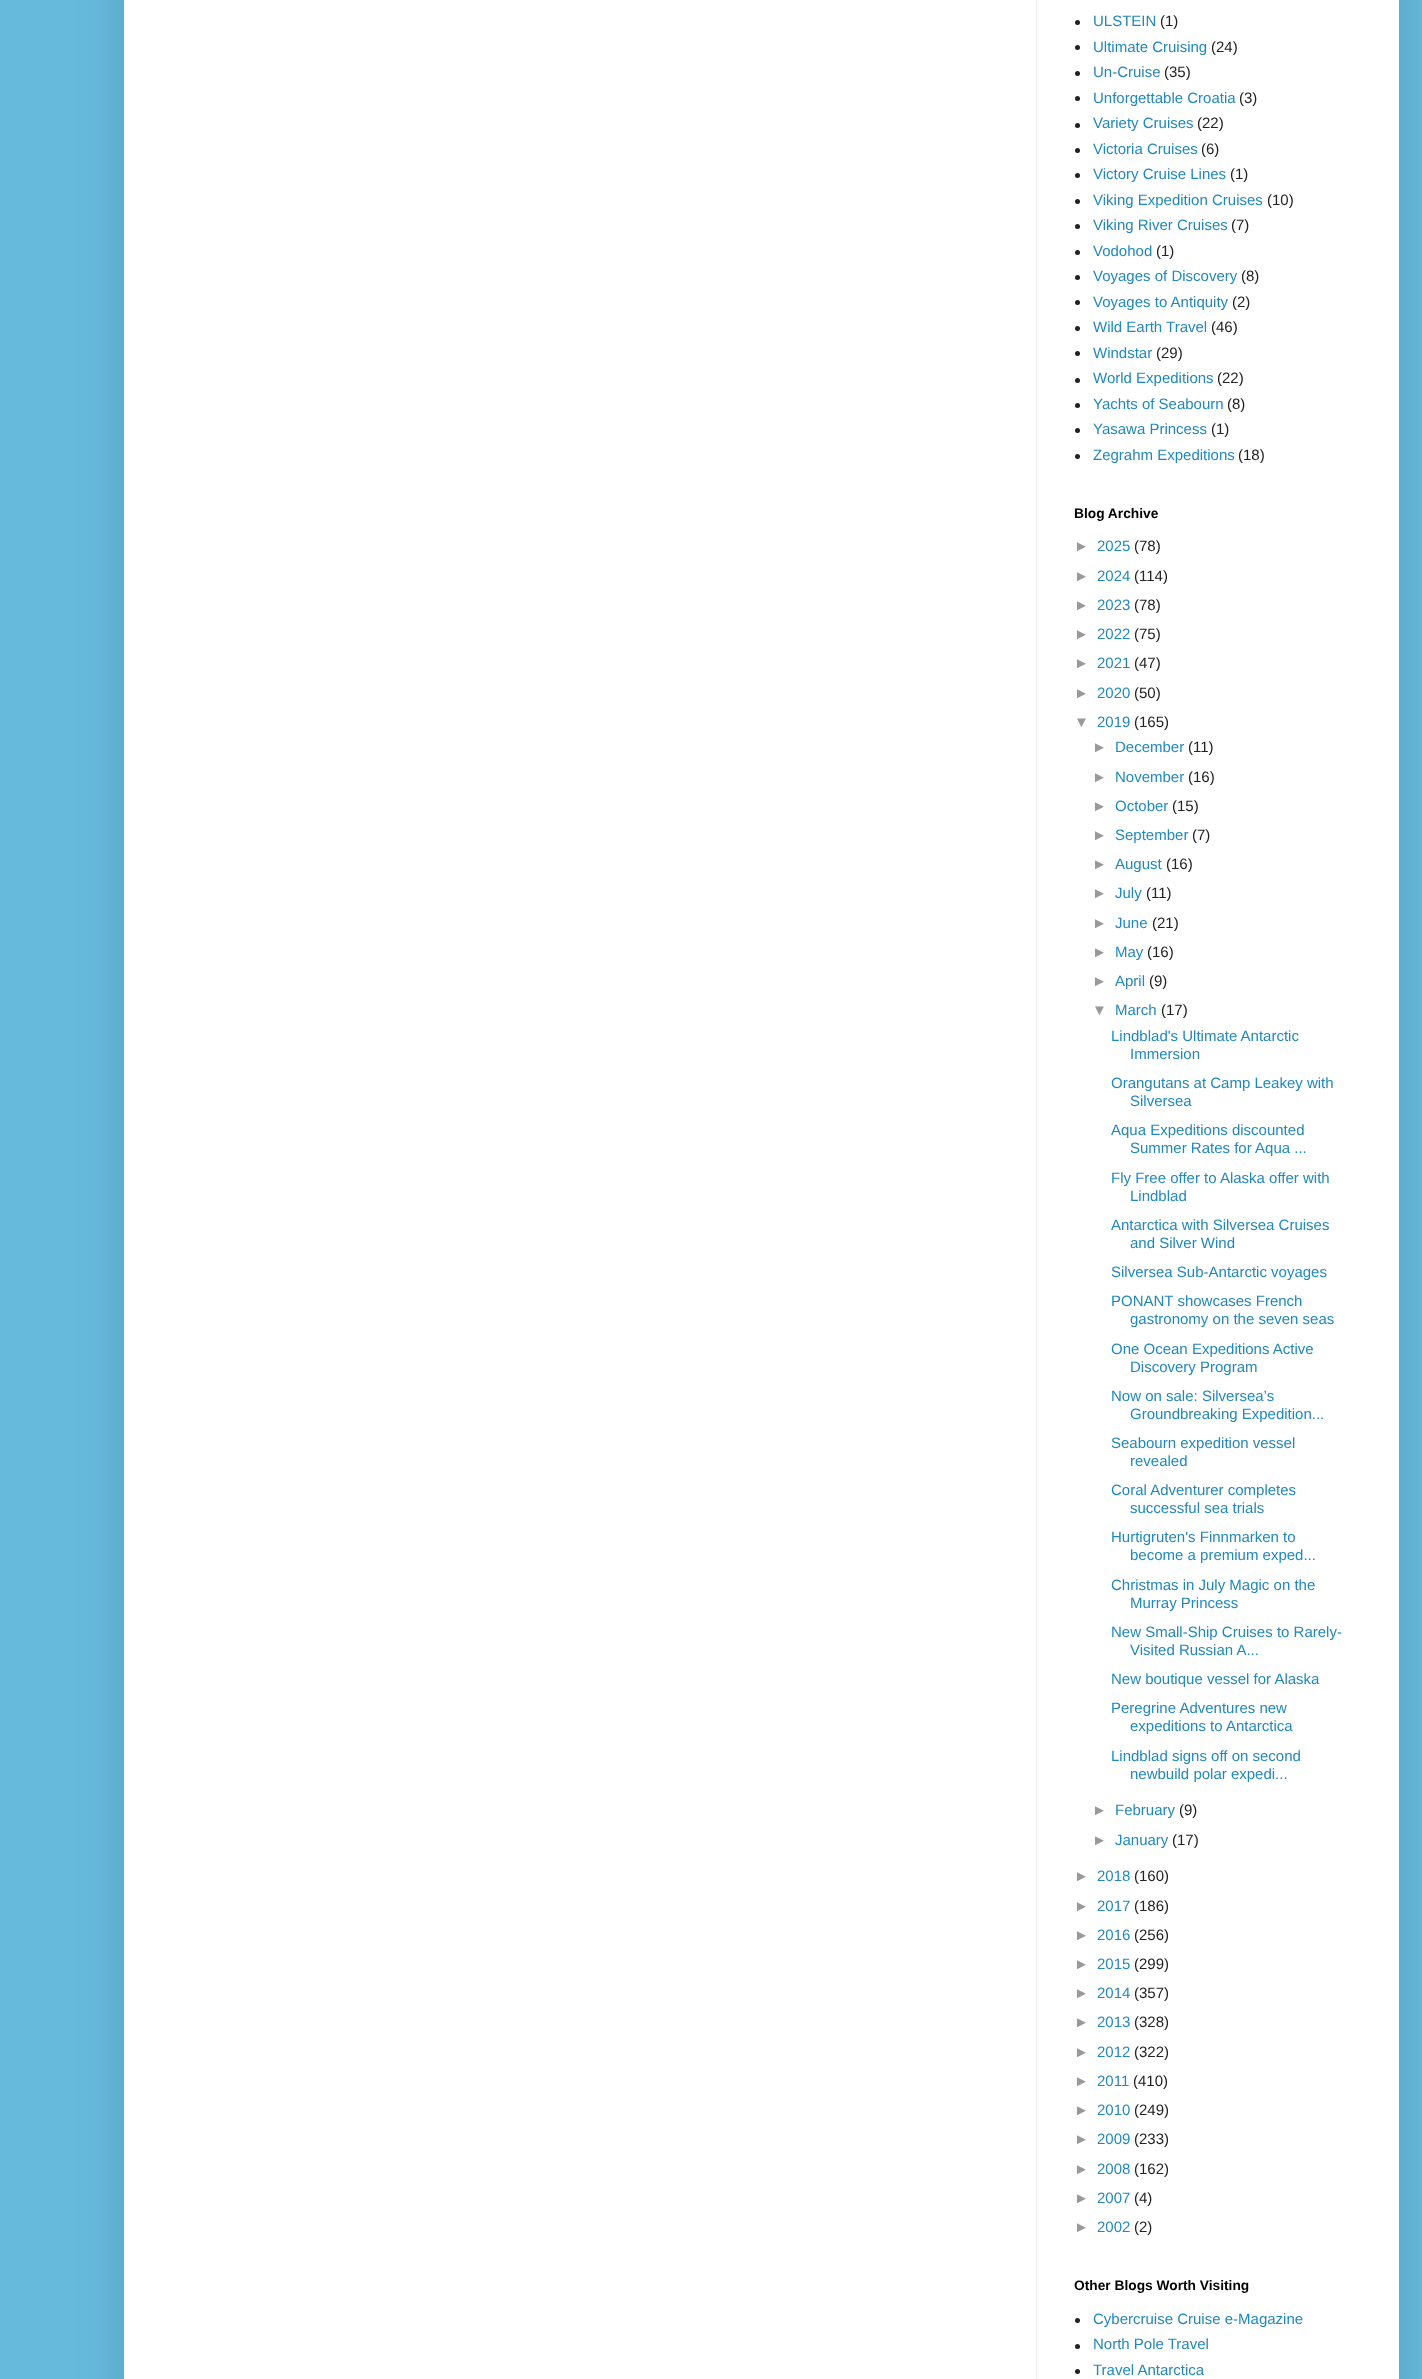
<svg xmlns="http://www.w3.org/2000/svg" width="1422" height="2379">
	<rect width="100%" height="100%" fill="#66BBDD" />
	<rect x="124" y="-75" width="1275" height="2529" fill="#000000" fill-opacity="0.15" filter="blur(25px)" />
	<rect x="124" y="0" width="1275" height="2379" fill="#FFFFFF" />
	<rect x="1036" y="0" width="1" height="2379" fill="#EEEEEE" />
	<circle cx="1077.5" cy="22.5" r="2.5" fill="#222222" />
	<text x="1093" y="26" font-family="Liberation Sans" font-size="15" fill="#2288BB">ULSTEIN</text>
	<text x="1160" y="26" font-family="Liberation Sans" font-size="15" fill="#222222">(1)</text>
	<circle cx="1077.5" cy="47.5" r="2.5" fill="#222222" />
	<text x="1093" y="52" font-family="Liberation Sans" font-size="15" fill="#2288BB">Ultimate Cruising</text>
	<text x="1211" y="52" font-family="Liberation Sans" font-size="15" fill="#222222">(24)</text>
	<circle cx="1077.5" cy="73.5" r="2.5" fill="#222222" />
	<text x="1093" y="77" font-family="Liberation Sans" font-size="15" fill="#2288BB">Un-Cruise</text>
	<text x="1164" y="77" font-family="Liberation Sans" font-size="15" fill="#222222">(35)</text>
	<circle cx="1077.5" cy="98.5" r="2.5" fill="#222222" />
	<text x="1093" y="103" font-family="Liberation Sans" font-size="15" fill="#2288BB">Unforgettable Croatia</text>
	<text x="1239" y="103" font-family="Liberation Sans" font-size="15" fill="#222222">(3)</text>
	<circle cx="1077.5" cy="125.5" r="2.5" fill="#222222" />
	<text x="1093" y="128" font-family="Liberation Sans" font-size="15" fill="#2288BB">Variety Cruises</text>
	<text x="1197" y="128" font-family="Liberation Sans" font-size="15" fill="#222222">(22)</text>
	<circle cx="1077.5" cy="150.5" r="2.5" fill="#222222" />
	<text x="1093" y="154" font-family="Liberation Sans" font-size="15" fill="#2288BB">Victoria Cruises</text>
	<text x="1201" y="154" font-family="Liberation Sans" font-size="15" fill="#222222">(6)</text>
	<circle cx="1077.5" cy="175.5" r="2.5" fill="#222222" />
	<text x="1093" y="179" font-family="Liberation Sans" font-size="15" fill="#2288BB">Victory Cruise Lines</text>
	<text x="1230" y="179" font-family="Liberation Sans" font-size="15" fill="#222222">(1)</text>
	<circle cx="1077.5" cy="201.5" r="2.5" fill="#222222" />
	<text x="1093" y="205" font-family="Liberation Sans" font-size="15" fill="#2288BB">Viking Expedition Cruises</text>
	<text x="1267" y="205" font-family="Liberation Sans" font-size="15" fill="#222222">(10)</text>
	<circle cx="1077.5" cy="226.5" r="2.5" fill="#222222" />
	<text x="1093" y="230" font-family="Liberation Sans" font-size="15" fill="#2288BB">Viking River Cruises</text>
	<text x="1231" y="230" font-family="Liberation Sans" font-size="15" fill="#222222">(7)</text>
	<circle cx="1077.5" cy="252.5" r="2.5" fill="#222222" />
	<text x="1093" y="256" font-family="Liberation Sans" font-size="15" fill="#2288BB">Vodohod</text>
	<text x="1156" y="256" font-family="Liberation Sans" font-size="15" fill="#222222">(1)</text>
	<circle cx="1077.5" cy="277.5" r="2.5" fill="#222222" />
	<text x="1093" y="281" font-family="Liberation Sans" font-size="15" fill="#2288BB">Voyages of Discovery</text>
	<text x="1241" y="281" font-family="Liberation Sans" font-size="15" fill="#222222">(8)</text>
	<circle cx="1077.5" cy="302.5" r="2.5" fill="#222222" />
	<text x="1093" y="307" font-family="Liberation Sans" font-size="15" fill="#2288BB">Voyages to Antiquity</text>
	<text x="1232" y="307" font-family="Liberation Sans" font-size="15" fill="#222222">(2)</text>
	<circle cx="1077.5" cy="328.5" r="2.5" fill="#222222" />
	<text x="1093" y="332" font-family="Liberation Sans" font-size="15" fill="#2288BB">Wild Earth Travel</text>
	<text x="1211" y="332" font-family="Liberation Sans" font-size="15" fill="#222222">(46)</text>
	<circle cx="1077.5" cy="353.5" r="2.5" fill="#222222" />
	<text x="1093" y="358" font-family="Liberation Sans" font-size="15" fill="#2288BB">Windstar</text>
	<text x="1156" y="358" font-family="Liberation Sans" font-size="15" fill="#222222">(29)</text>
	<circle cx="1077.5" cy="380.5" r="2.5" fill="#222222" />
	<text x="1093" y="383" font-family="Liberation Sans" font-size="15" fill="#2288BB">World Expeditions</text>
	<text x="1217" y="383" font-family="Liberation Sans" font-size="15" fill="#222222">(22)</text>
	<circle cx="1077.5" cy="405.5" r="2.5" fill="#222222" />
	<text x="1093" y="409" font-family="Liberation Sans" font-size="15" fill="#2288BB">Yachts of Seabourn</text>
	<text x="1227" y="409" font-family="Liberation Sans" font-size="15" fill="#222222">(8)</text>
	<circle cx="1077.5" cy="430.5" r="2.5" fill="#222222" />
	<text x="1093" y="434" font-family="Liberation Sans" font-size="15" fill="#2288BB">Yasawa Princess</text>
	<text x="1211" y="434" font-family="Liberation Sans" font-size="15" fill="#222222">(1)</text>
	<circle cx="1077.5" cy="456.5" r="2.5" fill="#222222" />
	<text x="1093" y="460" font-family="Liberation Sans" font-size="15" fill="#2288BB">Zegrahm Expeditions</text>
	<text x="1238" y="460" font-family="Liberation Sans" font-size="15" fill="#222222">(18)</text>
	<text x="1074" y="518" font-family="Liberation Sans" font-size="13.75" font-weight="700" fill="#000000">Blog Archive</text>
	<text x="1074" y="551" font-family="Liberation Sans" font-size="15" fill="#999999">►</text>
	<text x="1097" y="551" font-family="Liberation Sans" font-size="15" fill="#2288BB">2025</text>
	<text x="1134" y="551" font-family="Liberation Sans" font-size="15" fill="#222222">(78)</text>
	<text x="1074" y="581" font-family="Liberation Sans" font-size="15" fill="#999999">►</text>
	<text x="1097" y="581" font-family="Liberation Sans" font-size="15" fill="#2288BB">2024</text>
	<text x="1134" y="581" font-family="Liberation Sans" font-size="15" fill="#222222">(114)</text>
	<text x="1074" y="610" font-family="Liberation Sans" font-size="15" fill="#999999">►</text>
	<text x="1097" y="610" font-family="Liberation Sans" font-size="15" fill="#2288BB">2023</text>
	<text x="1134" y="610" font-family="Liberation Sans" font-size="15" fill="#222222">(78)</text>
	<text x="1074" y="639" font-family="Liberation Sans" font-size="15" fill="#999999">►</text>
	<text x="1097" y="639" font-family="Liberation Sans" font-size="15" fill="#2288BB">2022</text>
	<text x="1134" y="639" font-family="Liberation Sans" font-size="15" fill="#222222">(75)</text>
	<text x="1074" y="668" font-family="Liberation Sans" font-size="15" fill="#999999">►</text>
	<text x="1097" y="668" font-family="Liberation Sans" font-size="15" fill="#2288BB">2021</text>
	<text x="1134" y="668" font-family="Liberation Sans" font-size="15" fill="#222222">(47)</text>
	<text x="1074" y="698" font-family="Liberation Sans" font-size="15" fill="#999999">►</text>
	<text x="1097" y="698" font-family="Liberation Sans" font-size="15" fill="#2288BB">2020</text>
	<text x="1134" y="698" font-family="Liberation Sans" font-size="15" fill="#222222">(50)</text>
	<text x="1074" y="727" font-family="Liberation Sans" font-size="15" fill="#999999">▼</text>
	<text x="1097" y="727" font-family="Liberation Sans" font-size="15" fill="#2288BB">2019</text>
	<text x="1134" y="727" font-family="Liberation Sans" font-size="15" fill="#222222">(165)</text>
	<text x="1092" y="752" font-family="Liberation Sans" font-size="15" fill="#999999">►</text>
	<text x="1115" y="752" font-family="Liberation Sans" font-size="15" fill="#2288BB">December</text>
	<text x="1188" y="752" font-family="Liberation Sans" font-size="15" fill="#222222">(11)</text>
	<text x="1092" y="782" font-family="Liberation Sans" font-size="15" fill="#999999">►</text>
	<text x="1115" y="782" font-family="Liberation Sans" font-size="15" fill="#2288BB">November</text>
	<text x="1188" y="782" font-family="Liberation Sans" font-size="15" fill="#222222">(16)</text>
	<text x="1092" y="811" font-family="Liberation Sans" font-size="15" fill="#999999">►</text>
	<text x="1115" y="811" font-family="Liberation Sans" font-size="15" fill="#2288BB">October</text>
	<text x="1172" y="811" font-family="Liberation Sans" font-size="15" fill="#222222">(15)</text>
	<text x="1092" y="840" font-family="Liberation Sans" font-size="15" fill="#999999">►</text>
	<text x="1115" y="840" font-family="Liberation Sans" font-size="15" fill="#2288BB">September</text>
	<text x="1192" y="840" font-family="Liberation Sans" font-size="15" fill="#222222">(7)</text>
	<text x="1092" y="869" font-family="Liberation Sans" font-size="15" fill="#999999">►</text>
	<text x="1115" y="869" font-family="Liberation Sans" font-size="15" fill="#2288BB">August</text>
	<text x="1166" y="869" font-family="Liberation Sans" font-size="15" fill="#222222">(16)</text>
	<text x="1092" y="898" font-family="Liberation Sans" font-size="15" fill="#999999">►</text>
	<text x="1115" y="898" font-family="Liberation Sans" font-size="15" fill="#2288BB">July</text>
	<text x="1146" y="898" font-family="Liberation Sans" font-size="15" fill="#222222">(11)</text>
	<text x="1092" y="928" font-family="Liberation Sans" font-size="15" fill="#999999">►</text>
	<text x="1115" y="928" font-family="Liberation Sans" font-size="15" fill="#2288BB">June</text>
	<text x="1152" y="928" font-family="Liberation Sans" font-size="15" fill="#222222">(21)</text>
	<text x="1092" y="957" font-family="Liberation Sans" font-size="15" fill="#999999">►</text>
	<text x="1115" y="957" font-family="Liberation Sans" font-size="15" fill="#2288BB">May</text>
	<text x="1147" y="957" font-family="Liberation Sans" font-size="15" fill="#222222">(16)</text>
	<text x="1092" y="986" font-family="Liberation Sans" font-size="15" fill="#999999">►</text>
	<text x="1115" y="986" font-family="Liberation Sans" font-size="15" fill="#2288BB">April</text>
	<text x="1149" y="986" font-family="Liberation Sans" font-size="15" fill="#222222">(9)</text>
	<text x="1092" y="1015" font-family="Liberation Sans" font-size="15" fill="#999999">▼</text>
	<text x="1115" y="1015" font-family="Liberation Sans" font-size="15" fill="#2288BB">March</text>
	<text x="1161" y="1015" font-family="Liberation Sans" font-size="15" fill="#222222">(17)</text>
	<g font-family="Liberation Sans" font-size="15" fill="#2288BB">
		<text x="1111" y="1041">Lindblad's Ultimate Antarctic</text>
		<text x="1130" y="1059">Immersion</text>
		<text x="1111" y="1088">Orangutans at Camp Leakey with</text>
		<text x="1130" y="1106">Silversea</text>
		<text x="1111" y="1135">Aqua Expeditions discounted</text>
		<text x="1130" y="1153">Summer Rates for Aqua ...</text>
		<text x="1111" y="1183">Fly Free offer to Alaska offer with</text>
		<text x="1130" y="1201">Lindblad</text>
		<text x="1111" y="1230">Antarctica with Silversea Cruises</text>
		<text x="1130" y="1248">and Silver Wind</text>
		<text x="1111" y="1277">Silversea Sub-Antarctic voyages</text>
		<text x="1111" y="1306">PONANT showcases French</text>
		<text x="1130" y="1324">gastronomy on the seven seas</text>
		<text x="1111" y="1354">One Ocean Expeditions Active</text>
		<text x="1130" y="1372">Discovery Program</text>
		<text x="1111" y="1401">Now on sale: Silversea’s</text>
		<text x="1130" y="1419">Groundbreaking Expedition...</text>
		<text x="1111" y="1448">Seabourn expedition vessel</text>
		<text x="1130" y="1466">revealed</text>
		<text x="1111" y="1495">Coral Adventurer completes</text>
		<text x="1130" y="1513">successful sea trials</text>
		<text x="1111" y="1542">Hurtigruten's Finnmarken to</text>
		<text x="1130" y="1560">become a premium exped...</text>
		<text x="1111" y="1590">Christmas in July Magic on the</text>
		<text x="1130" y="1608">Murray Princess</text>
		<text x="1111" y="1637">New Small-Ship Cruises to Rarely-</text>
		<text x="1130" y="1655">Visited Russian A...</text>
		<text x="1111" y="1684">New boutique vessel for Alaska</text>
		<text x="1111" y="1713">Peregrine Adventures new</text>
		<text x="1130" y="1731">expeditions to Antarctica</text>
		<text x="1111" y="1761">Lindblad signs off on second</text>
		<text x="1130" y="1779">newbuild polar expedi...</text>
	</g>
	<text x="1092" y="1815" font-family="Liberation Sans" font-size="15" fill="#999999">►</text>
	<text x="1115" y="1815" font-family="Liberation Sans" font-size="15" fill="#2288BB">February</text>
	<text x="1179" y="1815" font-family="Liberation Sans" font-size="15" fill="#222222">(9)</text>
	<text x="1092" y="1845" font-family="Liberation Sans" font-size="15" fill="#999999">►</text>
	<text x="1115" y="1845" font-family="Liberation Sans" font-size="15" fill="#2288BB">January</text>
	<text x="1172" y="1845" font-family="Liberation Sans" font-size="15" fill="#222222">(17)</text>
	<text x="1074" y="1881" font-family="Liberation Sans" font-size="15" fill="#999999">►</text>
	<text x="1097" y="1881" font-family="Liberation Sans" font-size="15" fill="#2288BB">2018</text>
	<text x="1134" y="1881" font-family="Liberation Sans" font-size="15" fill="#222222">(160)</text>
	<text x="1074" y="1911" font-family="Liberation Sans" font-size="15" fill="#999999">►</text>
	<text x="1097" y="1911" font-family="Liberation Sans" font-size="15" fill="#2288BB">2017</text>
	<text x="1134" y="1911" font-family="Liberation Sans" font-size="15" fill="#222222">(186)</text>
	<text x="1074" y="1940" font-family="Liberation Sans" font-size="15" fill="#999999">►</text>
	<text x="1097" y="1940" font-family="Liberation Sans" font-size="15" fill="#2288BB">2016</text>
	<text x="1134" y="1940" font-family="Liberation Sans" font-size="15" fill="#222222">(256)</text>
	<text x="1074" y="1969" font-family="Liberation Sans" font-size="15" fill="#999999">►</text>
	<text x="1097" y="1969" font-family="Liberation Sans" font-size="15" fill="#2288BB">2015</text>
	<text x="1134" y="1969" font-family="Liberation Sans" font-size="15" fill="#222222">(299)</text>
	<text x="1074" y="1998" font-family="Liberation Sans" font-size="15" fill="#999999">►</text>
	<text x="1097" y="1998" font-family="Liberation Sans" font-size="15" fill="#2288BB">2014</text>
	<text x="1134" y="1998" font-family="Liberation Sans" font-size="15" fill="#222222">(357)</text>
	<text x="1074" y="2027" font-family="Liberation Sans" font-size="15" fill="#999999">►</text>
	<text x="1097" y="2027" font-family="Liberation Sans" font-size="15" fill="#2288BB">2013</text>
	<text x="1134" y="2027" font-family="Liberation Sans" font-size="15" fill="#222222">(328)</text>
	<text x="1074" y="2057" font-family="Liberation Sans" font-size="15" fill="#999999">►</text>
	<text x="1097" y="2057" font-family="Liberation Sans" font-size="15" fill="#2288BB">2012</text>
	<text x="1134" y="2057" font-family="Liberation Sans" font-size="15" fill="#222222">(322)</text>
	<text x="1074" y="2086" font-family="Liberation Sans" font-size="15" fill="#999999">►</text>
	<text x="1097" y="2086" font-family="Liberation Sans" font-size="15" fill="#2288BB">2011</text>
	<text x="1133" y="2086" font-family="Liberation Sans" font-size="15" fill="#222222">(410)</text>
	<text x="1074" y="2115" font-family="Liberation Sans" font-size="15" fill="#999999">►</text>
	<text x="1097" y="2115" font-family="Liberation Sans" font-size="15" fill="#2288BB">2010</text>
	<text x="1134" y="2115" font-family="Liberation Sans" font-size="15" fill="#222222">(249)</text>
	<text x="1074" y="2144" font-family="Liberation Sans" font-size="15" fill="#999999">►</text>
	<text x="1097" y="2144" font-family="Liberation Sans" font-size="15" fill="#2288BB">2009</text>
	<text x="1134" y="2144" font-family="Liberation Sans" font-size="15" fill="#222222">(233)</text>
	<text x="1074" y="2174" font-family="Liberation Sans" font-size="15" fill="#999999">►</text>
	<text x="1097" y="2174" font-family="Liberation Sans" font-size="15" fill="#2288BB">2008</text>
	<text x="1134" y="2174" font-family="Liberation Sans" font-size="15" fill="#222222">(162)</text>
	<text x="1074" y="2203" font-family="Liberation Sans" font-size="15" fill="#999999">►</text>
	<text x="1097" y="2203" font-family="Liberation Sans" font-size="15" fill="#2288BB">2007</text>
	<text x="1134" y="2203" font-family="Liberation Sans" font-size="15" fill="#222222">(4)</text>
	<text x="1074" y="2232" font-family="Liberation Sans" font-size="15" fill="#999999">►</text>
	<text x="1097" y="2232" font-family="Liberation Sans" font-size="15" fill="#2288BB">2002</text>
	<text x="1134" y="2232" font-family="Liberation Sans" font-size="15" fill="#222222">(2)</text>
	<text x="1074" y="2290" font-family="Liberation Sans" font-size="13.75" font-weight="700" fill="#000000">Other Blogs Worth Visiting</text>
	<circle cx="1077.5" cy="2320.5" r="2.5" fill="#222222" />
	<text x="1093" y="2324" font-family="Liberation Sans" font-size="15" fill="#2288BB">Cybercruise Cruise e-Magazine</text>
	<circle cx="1077.5" cy="2346.5" r="2.5" fill="#222222" />
	<text x="1093" y="2349" font-family="Liberation Sans" font-size="15" fill="#2288BB">North Pole Travel</text>
	<circle cx="1077.5" cy="2371.5" r="2.5" fill="#222222" />
	<text x="1093" y="2375" font-family="Liberation Sans" font-size="15" fill="#2288BB">Travel Antarctica</text>
</svg>
